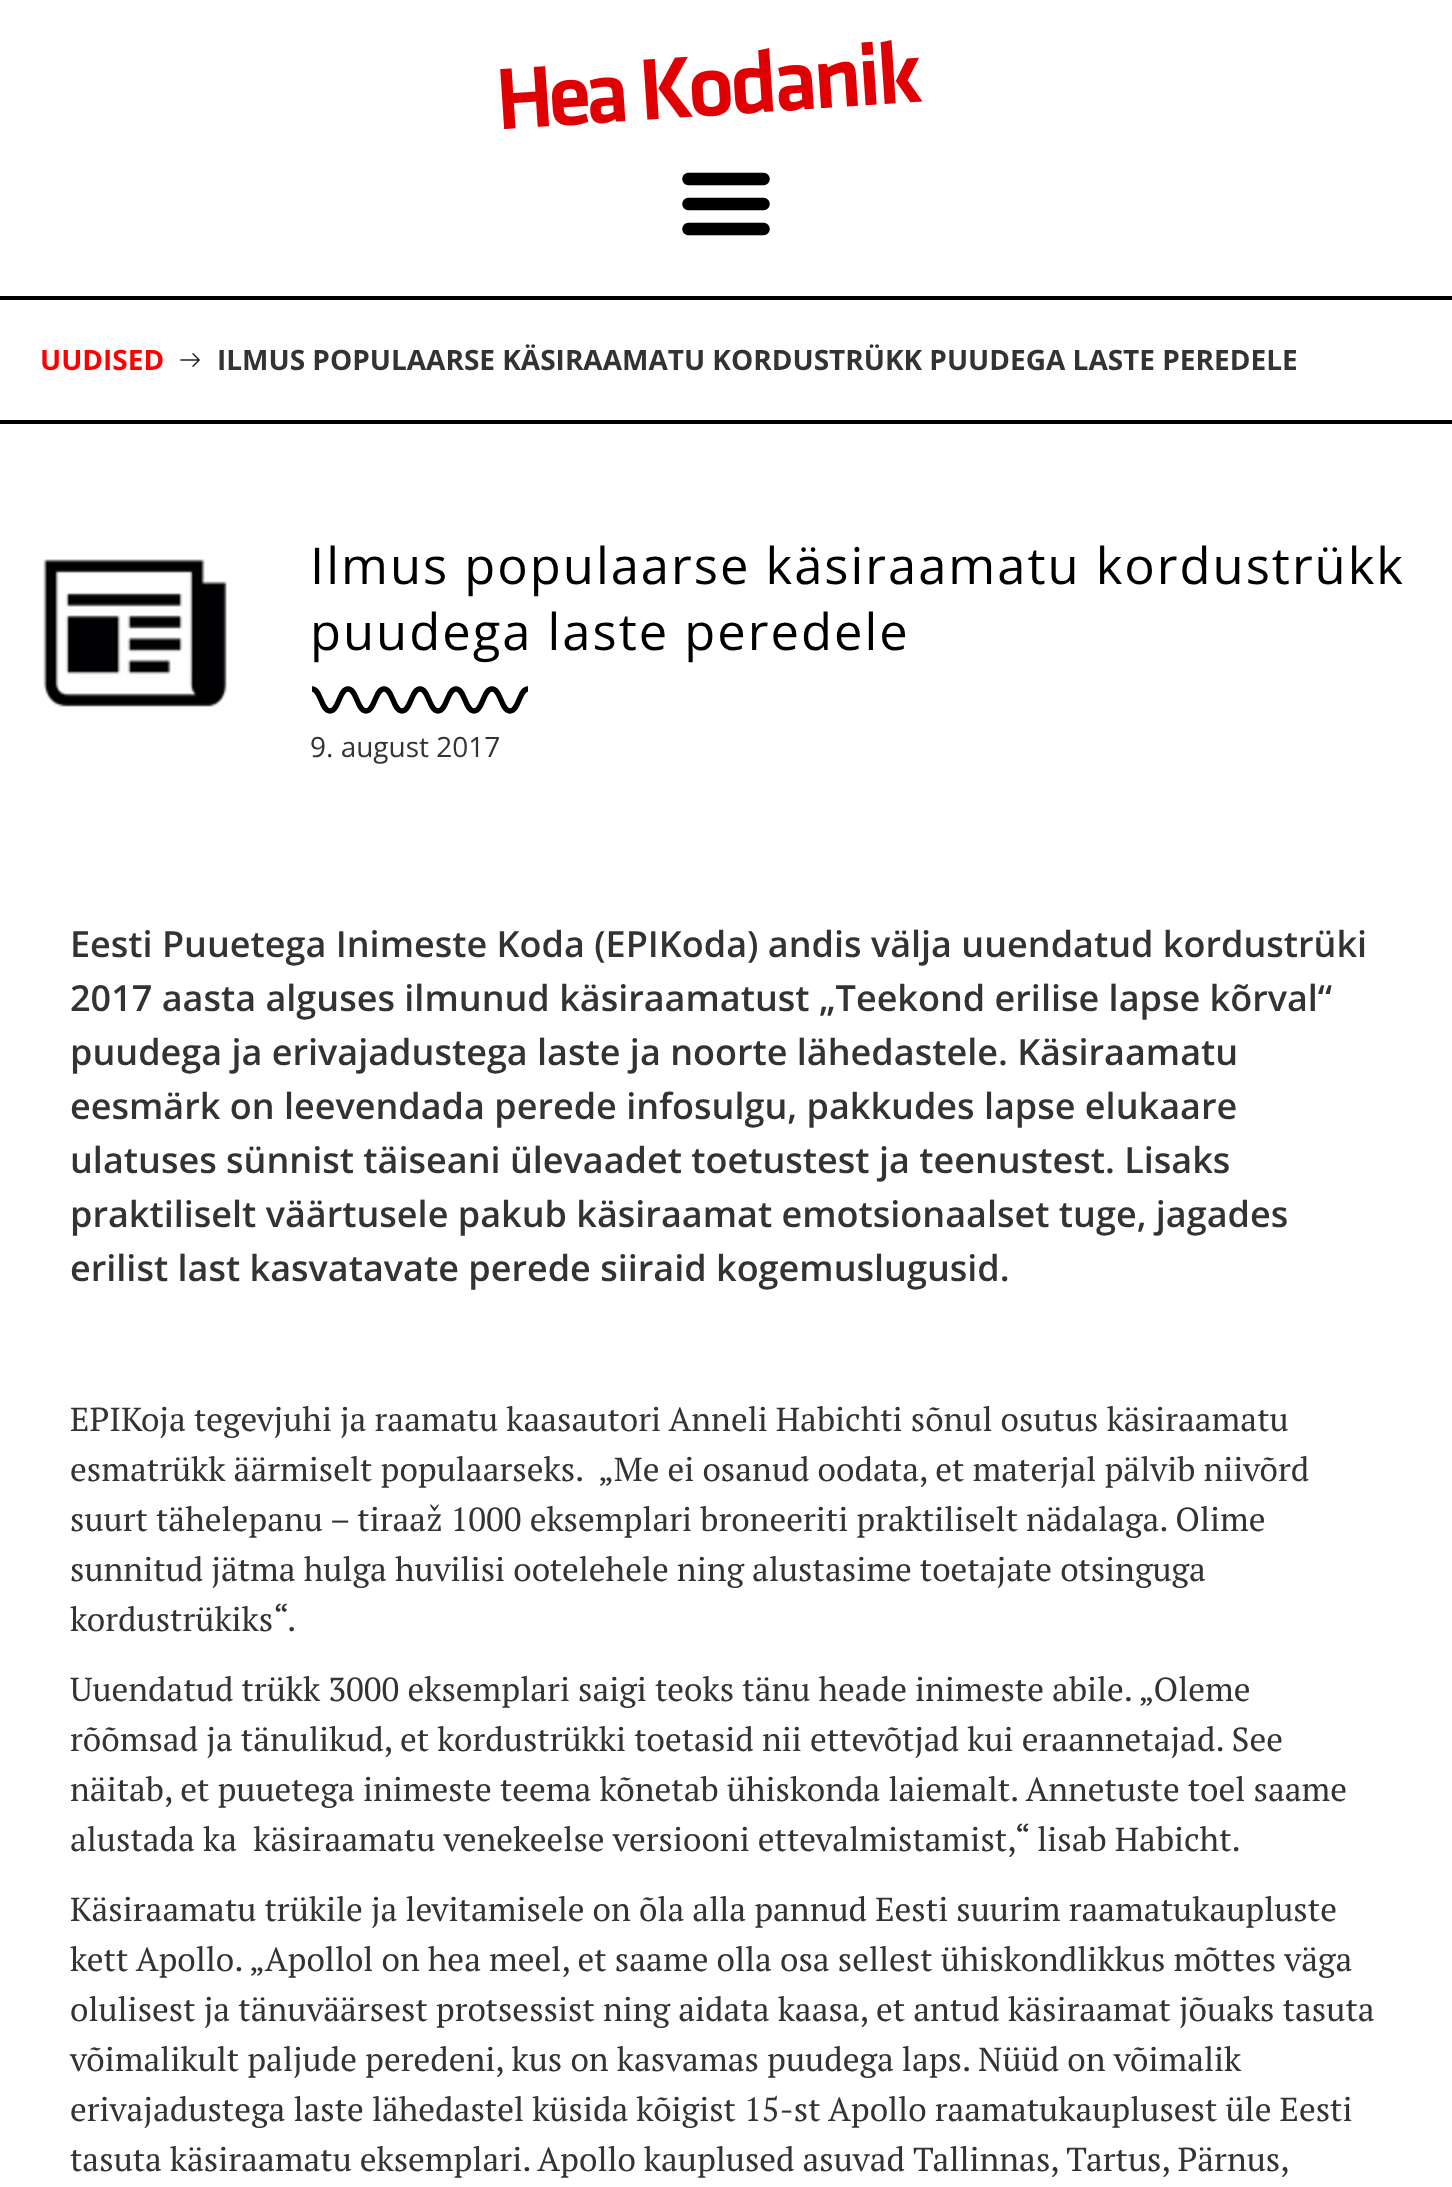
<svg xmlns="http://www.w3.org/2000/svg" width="1452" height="2187">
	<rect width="100%" height="100%" fill="#FFFFFF" />
	<rect x="0" y="296" width="1452" height="4" fill="#000000" />
	<image x="500" y="40" width="423" height="90" href="assets/img1.png" />
	<image x="682" y="172" width="88" height="64" href="assets/img2.png" />
	<rect x="0" y="420" width="1452" height="4" fill="#000000" />
	<text x="40" y="370" font-family="Open Sans" font-size="28" font-weight="700" fill="#FF0000">UUDISED</text>
	<image x="180" y="353" width="20" height="14" href="assets/img3.png" />
	<text x="217" y="370" font-family="Open Sans" font-size="28" font-weight="700" fill="#333333">ILMUS POPULAARSE KÄSIRAAMATU KORDUSTRÜKK PUUDEGA LASTE PEREDELE</text>
	<image x="43" y="559" width="184" height="148" href="assets/img4.png" />
	<g font-family="Open Sans" font-size="50.7" letter-spacing="2" fill="#000000">
		<text x="310" y="584">Ilmus populaarse käsiraamatu kordustrükk</text>
		<text x="310" y="650">puudega laste peredele</text>
	</g>
	<path d="M312 689C321 689 321 711 330 711C339 711 339 689 348 689C357 689 357 711 366 711C375 711 375 689 384 689C393 689 393 711 402 711C411 711 411 689 420 689C429 689 429 711 438 711C447 711 447 689 456 689C465 689 465 711 474 711C483 711 483 689 492 689C501 689 501 711 510 711C519 711 519 689 528 689" fill="none" stroke="#000000" stroke-width="5.4" />
	<text x="310" y="757" font-family="Open Sans" font-size="28" fill="#333333">9. august 2017</text>
	<g font-family="Open Sans" font-size="36" font-weight="600" fill="#333333">
		<text x="70" y="957">Eesti Puuetega Inimeste Koda (EPIKoda) andis välja uuendatud kordustrüki</text>
		<text x="70" y="1011">2017 aasta alguses ilmunud käsiraamatust „Teekond erilise lapse kõrval“</text>
		<text x="70" y="1065">puudega ja erivajadustega laste ja noorte lähedastele. Käsiraamatu</text>
		<text x="70" y="1119">eesmärk on leevendada perede infosulgu, pakkudes lapse elukaare</text>
		<text x="70" y="1173">ulatuses sünnist täiseani ülevaadet toetustest ja teenustest. Lisaks</text>
		<text x="70" y="1227">praktiliselt väärtusele pakub käsiraamat emotsionaalset tuge, jagades</text>
		<text x="70" y="1281">erilist last kasvatavate perede siiraid kogemuslugusid.</text>
	</g>
	<g font-family="PT Serif" font-size="33.35" fill="#333333">
		<text x="70" y="1431">EPIKoja tegevjuhi ja raamatu kaasautori Anneli Habichti sõnul osutus käsiraamatu</text>
		<text x="70" y="1481" xml:space="preserve">esmatrükk äärmiselt populaarseks.  „Me ei osanud oodata, et materjal pälvib niivõrd</text>
		<text x="70" y="1531">suurt tähelepanu – tiraaž 1000 eksemplari broneeriti praktiliselt nädalaga. Olime</text>
		<text x="70" y="1581">sunnitud jätma hulga huvilisi ootelehele ning alustasime toetajate otsinguga</text>
		<text x="70" y="1631">kordustrükiks“.</text>
		<text x="70" y="1701">Uuendatud trükk 3000 eksemplari saigi teoks tänu heade inimeste abile. „Oleme</text>
		<text x="70" y="1751">rõõmsad ja tänulikud, et kordustrükki toetasid nii ettevõtjad kui eraannetajad. See</text>
		<text x="70" y="1801">näitab, et puuetega inimeste teema kõnetab ühiskonda laiemalt. Annetuste toel saame</text>
		<text x="70" y="1851" xml:space="preserve">alustada ka  käsiraamatu venekeelse versiooni ettevalmistamist,“ lisab Habicht.</text>
		<text x="70" y="1921">Käsiraamatu trükile ja levitamisele on õla alla pannud Eesti suurim raamatukaupluste</text>
		<text x="70" y="1971">kett Apollo. „Apollol on hea meel, et saame olla osa sellest ühiskondlikkus mõttes väga</text>
		<text x="70" y="2021">olulisest ja tänuväärsest protsessist ning aidata kaasa, et antud käsiraamat jõuaks tasuta</text>
		<text x="70" y="2071">võimalikult paljude peredeni, kus on kasvamas puudega laps. Nüüd on võimalik</text>
		<text x="70" y="2121">erivajadustega laste lähedastel küsida kõigist 15-st Apollo raamatukauplusest üle Eesti</text>
		<text x="70" y="2171" word-spacing="-0.25">tasuta käsiraamatu eksemplari. Apollo kauplused asuvad Tallinnas, Tartus, Pärnus,</text>
	</g>
</svg>
